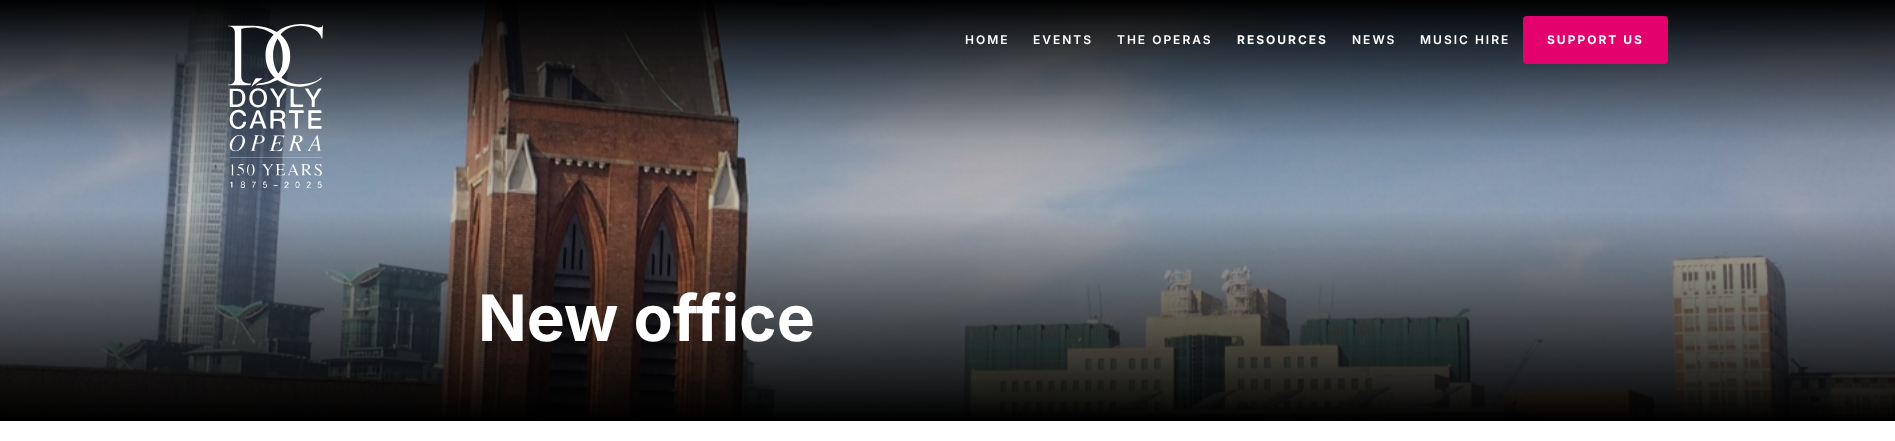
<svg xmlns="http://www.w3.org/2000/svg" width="1895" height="441">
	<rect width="100%" height="100%" fill="#FFFFFF" />
	<image x="0" y="0" width="1895" height="421" href="assets/img2.png" />
	<image x="228" y="24" width="95" height="164" href="assets/img1.png" />
	<g font-family="Inter" font-size="12" font-weight="600" letter-spacing="2" fill="#FFFFFF">
		<text x="965" y="44">HOME</text>
		<text x="1033" y="44">EVENTS</text>
		<text x="1117" y="44">THE OPERAS</text>
	</g>
	<text x="1237" y="44" font-family="Inter" font-size="12" font-weight="700" letter-spacing="2" fill="#FFFFFF">RESOURCES</text>
	<g font-family="Inter" font-size="12" font-weight="600" letter-spacing="2" fill="#FFFFFF">
		<text x="1352" y="44">NEWS</text>
		<text x="1420" y="44">MUSIC HIRE</text>
	</g>
	<rect x="1523" y="16" width="145" height="48" rx="4" fill="#E3016E" />
	<text x="1547" y="44" font-family="Inter" font-size="12" font-weight="700" letter-spacing="2" fill="#FFFFFF">SUPPORT US</text>
	<text x="478" y="341" font-family="Inter" font-size="64" font-weight="700" fill="#FFFFFF">New office</text>
</svg>
